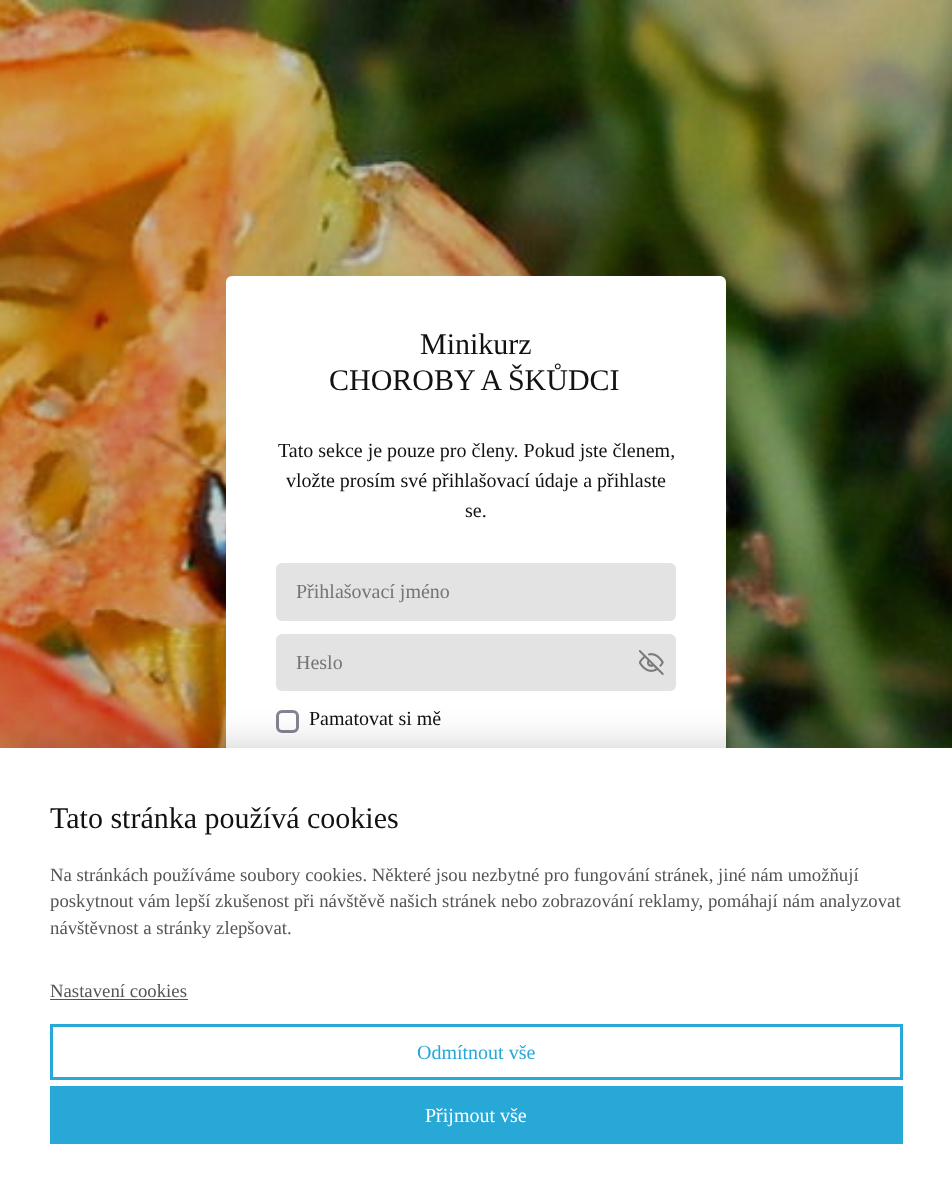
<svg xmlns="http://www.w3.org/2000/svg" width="952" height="1193">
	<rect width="100%" height="100%" fill="#FFFFFF" />
	<image x="0" y="0" width="952" height="748" href="assets/img1.png" />
	<rect x="226" y="276" width="500" height="642" rx="6" fill="#FFFFFF" />
	<g font-family="Liberation Serif" font-size="30" fill="#121212">
		<text x="420" y="354">Minikurz</text>
		<text x="329" y="390">CHOROBY A ŠKŮDCI</text>
	</g>
	<g font-family="Liberation Serif" font-size="20" fill="#121212">
		<text x="278" y="457">Tato sekce je pouze pro členy. Pokud jste členem,</text>
		<text x="286" y="487">vložte prosím své přihlašovací údaje a přihlaste</text>
		<text x="465" y="517">se.</text>
	</g>
	<rect x="276" y="563" width="400" height="58" rx="6" fill="#E3E3E3" />
	<text x="296" y="598" font-family="Liberation Serif" font-size="20" fill="#757575">Přihlašovací jméno</text>
	<rect x="276" y="634" width="400" height="57" rx="6" fill="#E3E3E3" />
	<text x="296" y="669" font-family="Liberation Serif" font-size="20" fill="#757575">Heslo</text>
	<image x="639" y="650" width="25" height="25" href="assets/img2.png" />
	<rect x="277.5" y="711.5" width="20" height="20" rx="4.5" fill="none" stroke="#848492" stroke-width="3" />
	<text x="309" y="725" font-family="Liberation Serif" font-size="20" fill="#121212">Pamatovat si mě</text>
	<rect x="0" y="748" width="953" height="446" fill="#000000" fill-opacity="0.2" filter="blur(19px)" />
	<rect x="0" y="748" width="952" height="445" fill="#FFFFFF" />
	<text x="50" y="828" font-family="Liberation Serif" font-size="30" fill="#121212">Tato stránka používá cookies</text>
	<g font-family="Liberation Serif" font-size="18.75" fill="#555555">
		<text x="50" y="881">Na stránkách používáme soubory cookies. Některé jsou nezbytné pro fungování stránek, jiné nám umožňují</text>
		<text x="50" y="907">poskytnout vám lepší zkušenost při návštěvě našich stránek nebo zobrazování reklamy, pomáhají nám analyzovat</text>
		<text x="50" y="934">návštěvnost a stránky zlepšovat.</text>
		<text x="50" y="997">Nastavení cookies</text>
	</g>
	<rect x="50" y="999" width="138" height="1" fill="#555555" />
	<rect x="51.5" y="1025.5" width="850" height="53" fill="none" stroke="#27A8D7" stroke-width="3" />
	<text x="417" y="1059" font-family="Liberation Serif" font-size="20" fill="#27A8D7">Odmítnout vše</text>
	<rect x="50" y="1086" width="853" height="58" fill="#27A8D7" />
	<text x="425" y="1122" font-family="Liberation Serif" font-size="20" fill="#FFFFFF">Přijmout vše</text>
</svg>
